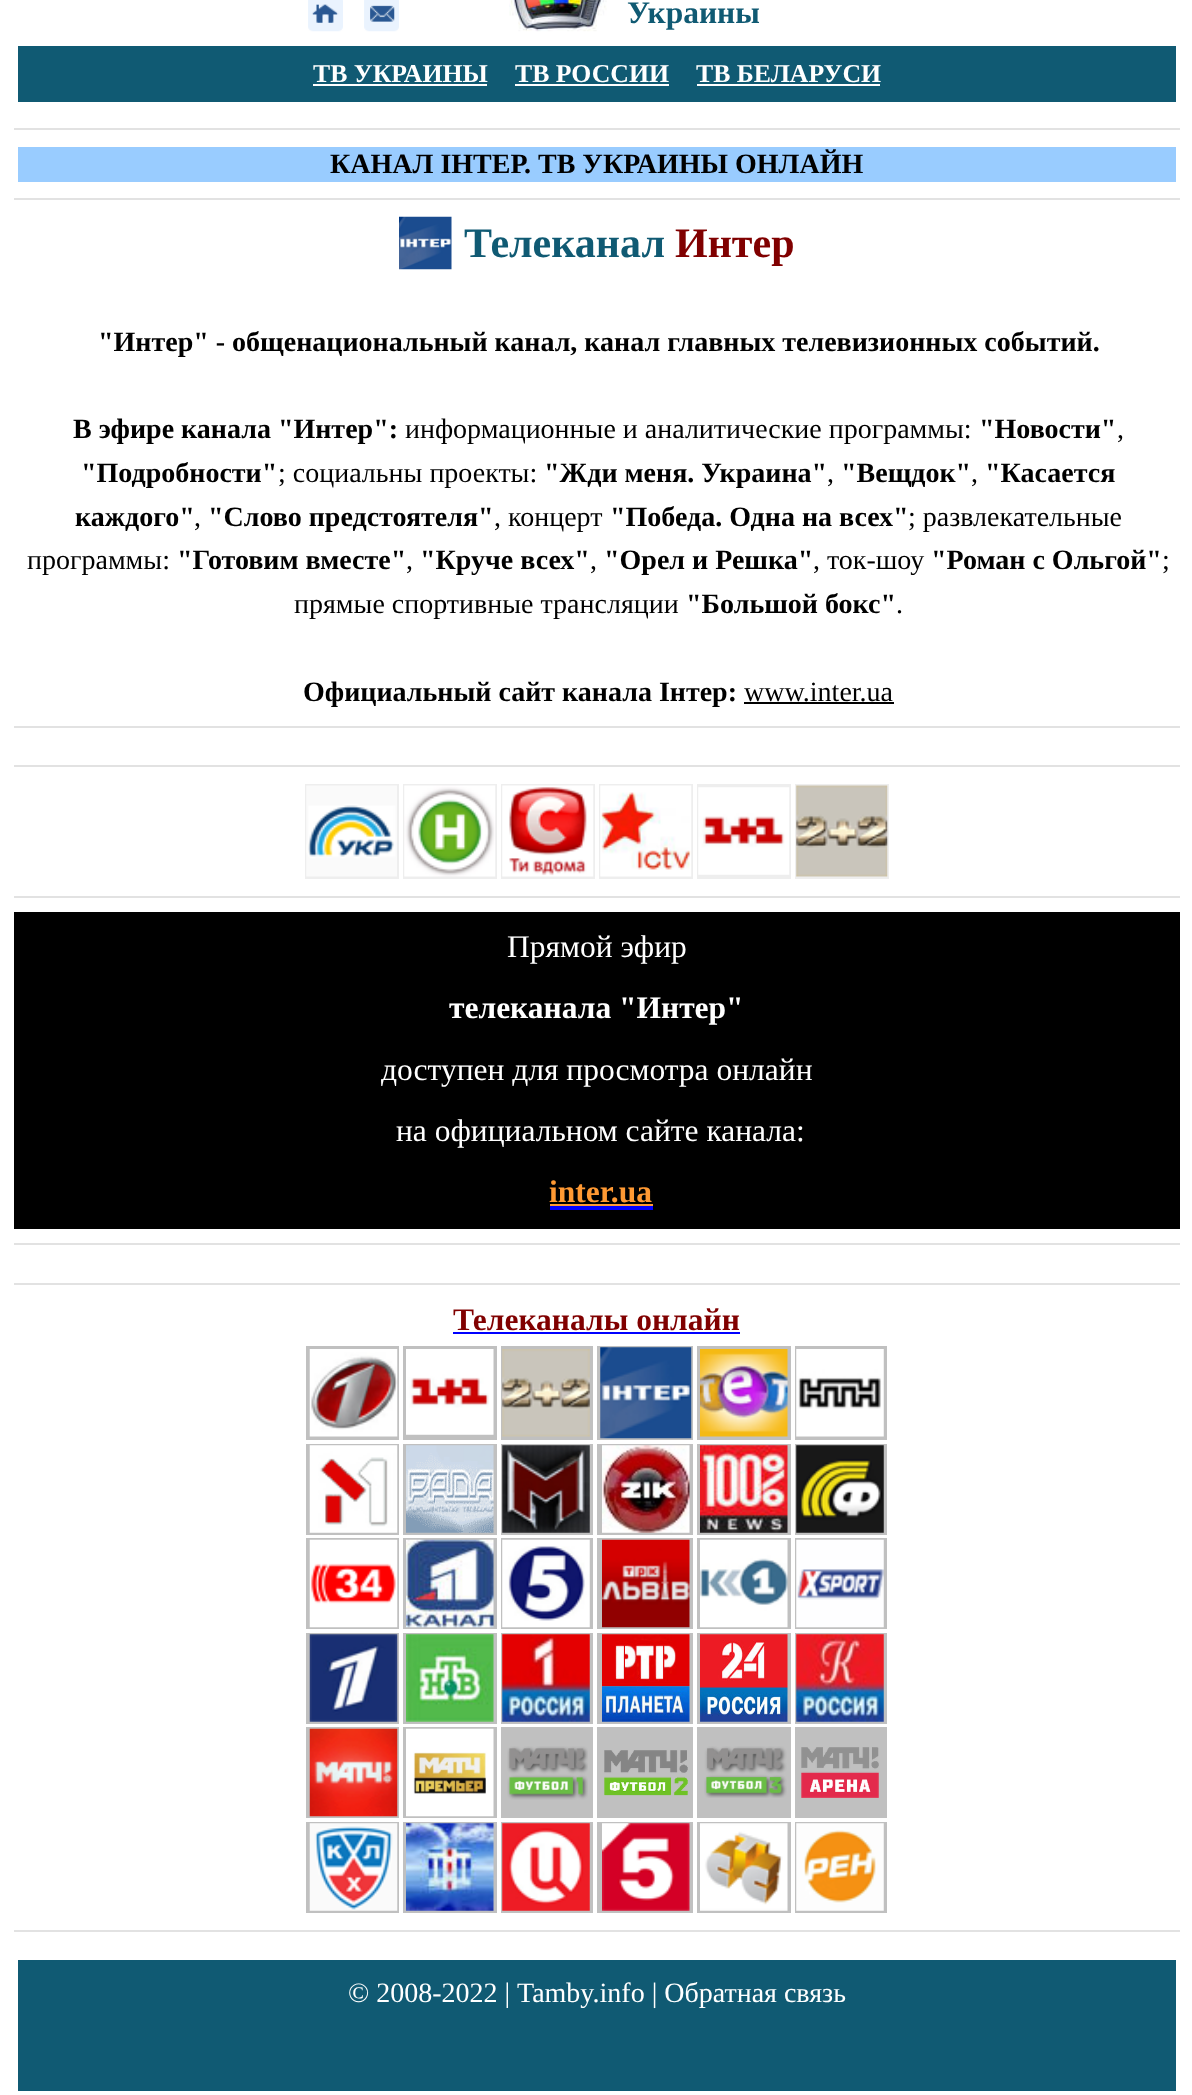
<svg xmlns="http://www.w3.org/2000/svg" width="1192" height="2095">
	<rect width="100%" height="100%" fill="#FFFFFF" />
	<image x="308" y="0" width="35" height="32" href="assets/img1.png" />
	<image x="364" y="0" width="35" height="32" href="assets/img2.png" />
	<image x="509" y="0" width="98" height="32" href="assets/img3.png" />
	<text x="627" y="23" font-family="Liberation Serif" font-size="31.5" font-weight="700" fill="#105A73">Украины</text>
	<rect x="18" y="46" width="1158" height="56" fill="#105A73" />
	<text x="313" y="82" font-family="Liberation Serif" font-size="25.75" font-weight="700" fill="#FFFFFF">ТВ УКРАИНЫ</text>
	<rect x="313" y="84" width="174" height="2" fill="#FFFFFF" />
	<text x="515" y="82" font-family="Liberation Serif" font-size="25.75" font-weight="700" fill="#FFFFFF">ТВ РОССИИ</text>
	<rect x="515" y="84" width="154" height="2" fill="#FFFFFF" />
	<text x="696" y="82" font-family="Liberation Serif" font-size="25.75" font-weight="700" fill="#FFFFFF">ТВ БЕЛАРУСИ</text>
	<rect x="697" y="84" width="183" height="2" fill="#FFFFFF" />
	<rect x="14" y="128" width="1166" height="2" fill="#E2E2E2" />
	<rect x="18" y="147" width="1158" height="35" fill="#99CCFF" />
	<text x="330" y="173" font-family="Liberation Serif" font-size="28" font-weight="700" fill="#000000">КАНАЛ IНТЕР. ТВ УКРАИНЫ ОНЛАЙН</text>
	<rect x="14" y="198" width="1166" height="2" fill="#E2E2E2" />
	<image x="399" y="216" width="53" height="54" href="assets/img4.png" />
	<text x="464" y="257" font-family="Liberation Serif" font-size="42" font-weight="700" fill="#105A73">Телеканал</text>
	<text x="675" y="257" font-family="Liberation Serif" font-size="42" font-weight="700" fill="#800000">Интер</text>
	<g font-family="Liberation Serif" font-size="28" font-weight="700" fill="#000000">
		<text x="98" y="351">"Интер" - общенациональный канал, канал главных телевизионных событий.</text>
		<text x="73" y="438">В эфире канала "Интер":</text>
	</g>
	<text x="405" y="438" font-family="Liberation Serif" font-size="28" fill="#000000">информационные и аналитические программы:</text>
	<text x="979" y="438" font-family="Liberation Serif" font-size="28" font-weight="700" fill="#000000">"Новости"</text>
	<text x="1117" y="438" font-family="Liberation Serif" font-size="28" fill="#000000">,</text>
	<text x="81" y="482" font-family="Liberation Serif" font-size="28" font-weight="700" fill="#000000">"Подробности"</text>
	<text x="278" y="482" font-family="Liberation Serif" font-size="28" fill="#000000">; социальны проекты:</text>
	<text x="544" y="482" font-family="Liberation Serif" font-size="28" font-weight="700" fill="#000000">"Жди меня. Украина"</text>
	<text x="827" y="482" font-family="Liberation Serif" font-size="28" fill="#000000">,</text>
	<text x="841" y="482" font-family="Liberation Serif" font-size="28" font-weight="700" fill="#000000">"Вещдок"</text>
	<text x="971" y="482" font-family="Liberation Serif" font-size="28" fill="#000000">,</text>
	<g font-family="Liberation Serif" font-size="28" font-weight="700" fill="#000000">
		<text x="985" y="482">"Касается</text>
		<text x="75" y="526">каждого"</text>
	</g>
	<text x="194" y="526" font-family="Liberation Serif" font-size="28" fill="#000000">,</text>
	<text x="208" y="526" font-family="Liberation Serif" font-size="28" font-weight="700" fill="#000000">"Слово предстоятеля"</text>
	<text x="494" y="526" font-family="Liberation Serif" font-size="28" fill="#000000">, концерт</text>
	<text x="610" y="526" font-family="Liberation Serif" font-size="28" font-weight="700" fill="#000000">"Победа. Одна на всех"</text>
	<g font-family="Liberation Serif" font-size="28" fill="#000000">
		<text x="908" y="526">; развлекательные</text>
		<text x="27" y="569">программы:</text>
	</g>
	<text x="177" y="569" font-family="Liberation Serif" font-size="28" font-weight="700" fill="#000000">"Готовим вместе"</text>
	<text x="406" y="569" font-family="Liberation Serif" font-size="28" fill="#000000">,</text>
	<text x="420" y="569" font-family="Liberation Serif" font-size="28" font-weight="700" fill="#000000">"Круче всех"</text>
	<text x="590" y="569" font-family="Liberation Serif" font-size="28" fill="#000000">,</text>
	<text x="604" y="569" font-family="Liberation Serif" font-size="28" font-weight="700" fill="#000000">"Орел и Решка"</text>
	<text x="813" y="569" font-family="Liberation Serif" font-size="28" fill="#000000">, ток-шоу</text>
	<text x="931" y="569" font-family="Liberation Serif" font-size="28" font-weight="700" fill="#000000">"Роман с Ольгой"</text>
	<g font-family="Liberation Serif" font-size="28" fill="#000000">
		<text x="1162" y="569">;</text>
		<text x="294" y="613">прямые спортивные трансляции</text>
	</g>
	<text x="686" y="613" font-family="Liberation Serif" font-size="28" font-weight="700" fill="#000000">"Большой бокс"</text>
	<text x="896" y="613" font-family="Liberation Serif" font-size="28" fill="#000000">.</text>
	<text x="303" y="701" font-family="Liberation Serif" font-size="28" font-weight="700" fill="#000000">Официальный сайт канала Iнтер:</text>
	<text x="744" y="701" font-family="Liberation Serif" font-size="28" fill="#000000">www.inter.ua</text>
	<rect x="744" y="702" width="150" height="2" fill="#000000" />
	<rect x="14" y="726" width="1166" height="2" fill="#E2E2E2" />
	<rect x="14" y="765" width="1166" height="2" fill="#E2E2E2" />
	<rect x="305" y="784" width="94" height="95" fill="#EEEEEE" />
	<image x="306" y="785" width="91" height="92" href="assets/img5.png" />
	<rect x="403" y="784" width="94" height="95" fill="#EEEEEE" />
	<image x="404" y="785" width="92" height="92" href="assets/img6.png" />
	<rect x="501" y="784" width="94" height="95" fill="#EEEEEE" />
	<image x="502" y="785" width="92" height="92" href="assets/img7.png" />
	<rect x="599" y="784" width="94" height="95" fill="#EEEEEE" />
	<image x="600" y="785" width="92" height="92" href="assets/img8.png" />
	<rect x="697" y="784" width="94" height="95" fill="#EEEEEE" />
	<image x="698" y="787" width="92" height="88" href="assets/img9.png" />
	<rect x="795" y="784" width="94" height="95" fill="#EEEEEE" />
	<image x="796" y="785" width="92" height="92" href="assets/img10.png" />
	<rect x="14" y="896" width="1166" height="2" fill="#E2E2E2" />
	<rect x="14" y="912" width="1166" height="317" fill="#000000" />
	<text x="507" y="957" font-family="Liberation Serif" font-size="31.5" fill="#FFFFFF">Прямой эфир</text>
	<text x="449" y="1018" font-family="Liberation Serif" font-size="31.5" font-weight="700" fill="#FFFFFF">телеканала "Интер"</text>
	<g font-family="Liberation Serif" font-size="31.5" fill="#FFFFFF">
		<text x="381" y="1080">доступен для просмотра онлайн</text>
		<text x="396" y="1141">на официальном сайте канала:</text>
	</g>
	<text x="549" y="1202" font-family="Liberation Serif" font-size="31.5" font-weight="700" fill="#FF9933">inter.ua</text>
	<rect x="550" y="1204" width="103" height="2" fill="#FF9933" />
	<rect x="550" y="1206" width="103" height="4" fill="#0000FF" />
	<rect x="14" y="1243" width="1166" height="2" fill="#E2E2E2" />
	<rect x="14" y="1283" width="1166" height="2" fill="#E2E2E2" />
	<text x="453" y="1330" font-family="Liberation Serif" font-size="31.5" font-weight="700" fill="#800000">Телеканалы онлайн</text>
	<rect x="453" y="1332" width="287" height="2" fill="#0000FF" />
	<rect x="306" y="1346" width="93" height="94" fill="#C0C0C0" />
	<image x="309" y="1349" width="89" height="88" href="assets/img11.png" />
	<rect x="403" y="1346" width="94" height="94" fill="#C0C0C0" />
	<image x="406" y="1349" width="88" height="86" href="assets/img12.png" />
	<rect x="501" y="1346" width="92" height="94" fill="#C0C0C0" />
	<image x="502" y="1349" width="88" height="88" href="assets/img13.png" />
	<rect x="597" y="1346" width="96" height="94" fill="#C0C0C0" />
	<image x="600" y="1347" width="92" height="92" href="assets/img14.png" />
	<rect x="697" y="1346" width="94" height="94" fill="#C0C0C0" />
	<image x="700" y="1349" width="88" height="88" href="assets/img15.png" />
	<rect x="795" y="1346" width="92" height="94" fill="#C0C0C0" />
	<image x="796" y="1349" width="88" height="88" href="assets/img16.png" />
	<rect x="306" y="1444" width="93" height="91" fill="#C0C0C0" />
	<image x="309" y="1445" width="89" height="88" href="assets/img17.png" />
	<rect x="403" y="1444" width="94" height="91" fill="#C0C0C0" />
	<image x="406" y="1445" width="88" height="88" href="assets/img18.png" />
	<rect x="501" y="1444" width="92" height="91" fill="#C0C0C0" />
	<image x="502" y="1445" width="88" height="88" href="assets/img19.png" />
	<rect x="597" y="1444" width="96" height="91" fill="#C0C0C0" />
	<image x="602" y="1445" width="88" height="88" href="assets/img20.png" />
	<rect x="697" y="1444" width="94" height="91" fill="#C0C0C0" />
	<image x="700" y="1445" width="88" height="88" href="assets/img21.png" />
	<rect x="795" y="1444" width="92" height="91" fill="#C0C0C0" />
	<image x="796" y="1445" width="88" height="88" href="assets/img22.png" />
	<rect x="306" y="1538" width="93" height="91" fill="#C0C0C0" />
	<image x="309" y="1539" width="89" height="89" href="assets/img23.png" />
	<rect x="403" y="1538" width="94" height="91" fill="#C0C0C0" />
	<image x="406" y="1539" width="88" height="89" href="assets/img24.png" />
	<rect x="501" y="1538" width="92" height="91" fill="#C0C0C0" />
	<image x="502" y="1539" width="88" height="89" href="assets/img25.png" />
	<rect x="597" y="1538" width="96" height="91" fill="#C0C0C0" />
	<image x="602" y="1539" width="88" height="89" href="assets/img26.png" />
	<rect x="697" y="1538" width="94" height="91" fill="#C0C0C0" />
	<image x="700" y="1539" width="88" height="89" href="assets/img27.png" />
	<rect x="795" y="1538" width="92" height="91" fill="#C0C0C0" />
	<image x="796" y="1539" width="88" height="89" href="assets/img28.png" />
	<rect x="306" y="1633" width="93" height="91" fill="#C0C0C0" />
	<image x="309" y="1634" width="89" height="88" href="assets/img29.png" />
	<rect x="403" y="1633" width="94" height="91" fill="#C0C0C0" />
	<image x="406" y="1634" width="88" height="88" href="assets/img30.png" />
	<rect x="501" y="1633" width="92" height="91" fill="#C0C0C0" />
	<image x="502" y="1634" width="88" height="88" href="assets/img31.png" />
	<rect x="597" y="1633" width="96" height="91" fill="#C0C0C0" />
	<image x="602" y="1634" width="88" height="88" href="assets/img32.png" />
	<rect x="697" y="1633" width="94" height="91" fill="#C0C0C0" />
	<image x="700" y="1634" width="88" height="88" href="assets/img33.png" />
	<rect x="795" y="1633" width="92" height="91" fill="#C0C0C0" />
	<image x="796" y="1634" width="88" height="88" href="assets/img34.png" />
	<rect x="306" y="1727" width="93" height="91" fill="#C0C0C0" />
	<image x="309" y="1728" width="89" height="89" href="assets/img35.png" />
	<rect x="403" y="1727" width="94" height="91" fill="#C0C0C0" />
	<image x="406" y="1728" width="88" height="89" href="assets/img36.png" />
	<rect x="501" y="1727" width="92" height="91" fill="#C0C0C0" />
	<image x="507" y="1746" width="81" height="54" href="assets/img37.png" />
	<rect x="597" y="1727" width="96" height="91" fill="#C0C0C0" />
	<image x="604" y="1750" width="84" height="46" href="assets/img38.png" />
	<rect x="697" y="1727" width="94" height="91" fill="#C0C0C0" />
	<image x="704" y="1746" width="83" height="52" href="assets/img39.png" />
	<rect x="795" y="1727" width="92" height="91" fill="#C0C0C0" />
	<image x="801" y="1747" width="78" height="51" href="assets/img40.png" />
	<rect x="306" y="1822" width="93" height="91" fill="#C0C0C0" />
	<image x="309" y="1823" width="89" height="88" href="assets/img41.png" />
	<rect x="403" y="1822" width="94" height="91" fill="#C0C0C0" />
	<image x="406" y="1823" width="88" height="88" href="assets/img42.png" />
	<rect x="501" y="1822" width="92" height="91" fill="#C0C0C0" />
	<image x="502" y="1823" width="88" height="88" href="assets/img43.png" />
	<rect x="597" y="1822" width="96" height="91" fill="#C0C0C0" />
	<image x="602" y="1823" width="88" height="88" href="assets/img44.png" />
	<rect x="697" y="1822" width="94" height="91" fill="#C0C0C0" />
	<image x="700" y="1823" width="88" height="88" href="assets/img45.png" />
	<rect x="795" y="1822" width="92" height="91" fill="#C0C0C0" />
	<image x="796" y="1823" width="88" height="88" href="assets/img46.png" />
	<rect x="14" y="1930" width="1166" height="2" fill="#E2E2E2" />
	<rect x="18" y="1960" width="1158" height="131" fill="#105A73" />
	<g font-family="Liberation Serif" font-size="28" fill="#FFFFFF">
		<text x="348" y="2002">© 2008-2022 |</text>
		<text x="517" y="2002">Tamby.info | Обратная связь</text>
	</g>
</svg>
